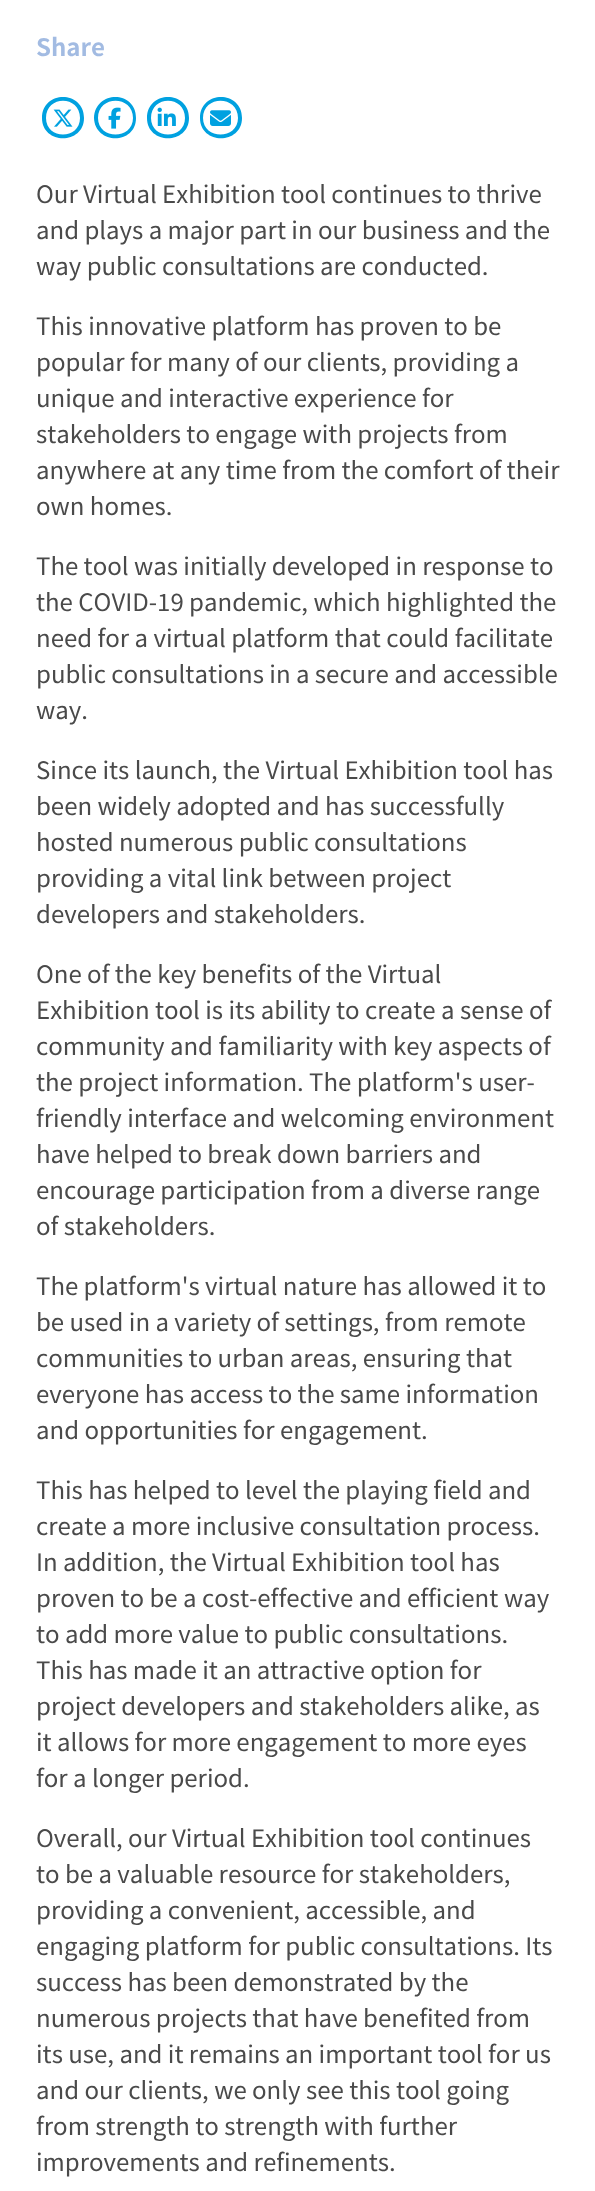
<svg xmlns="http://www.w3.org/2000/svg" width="595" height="2191">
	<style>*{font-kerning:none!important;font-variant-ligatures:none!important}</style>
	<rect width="100%" height="100%" fill="#FFFFFF" />
	<text x="36" y="56" font-family="Noto Sans JP" font-size="24" font-weight="700" fill="#A2BBE2">Share</text>
	<path d="M80 118C80 95 46 95 46 118C46 140 80 140 80 118ZM42 118C42 90 84 90 84 118C84 145 42 145 42 118Z" fill="#00A1E0" />
	<image x="53" y="109" width="20" height="18" href="assets/img1.png" />
	<path d="M133 118C133 95 98 95 98 118C98 140 133 140 133 118ZM94 118C95 90 136 90 136 118C136 145 95 145 94 118Z" fill="#00A1E0" />
	<image x="108" y="107" width="13" height="22" href="assets/img2.png" />
	<path d="M185 118C185 95 151 95 151 118C151 140 185 140 185 118ZM147 118C147 90 189 90 189 118C189 145 147 145 147 118Z" fill="#00A1E0" />
	<image x="157" y="107" width="19" height="19" href="assets/img3.png" />
	<path d="M238 118C238 95 203 95 203 118C203 140 238 140 238 118ZM200 118C200 90 242 90 242 118C242 145 200 145 200 118Z" fill="#00A1E0" />
	<image x="210" y="110" width="21" height="16" href="assets/img4.png" />
	<g font-family="Noto Sans JP" font-size="24" fill="#4A4A4A">
		<text x="36" y="203">Our Virtual Exhibition tool continues to thrive</text>
		<text x="36" y="239">and plays a major part in our business and the</text>
		<text x="36" y="275">way public consultations are conducted.</text>
		<text x="36" y="335">This innovative platform has proven to be</text>
		<text x="36" y="371">popular for many of our clients, providing a</text>
		<text x="36" y="407">unique and interactive experience for</text>
		<text x="36" y="443">stakeholders to engage with projects from</text>
		<text x="36" y="479">anywhere at any time from the comfort of their</text>
		<text x="36" y="515">own homes.</text>
		<text x="36" y="575">The tool was initially developed in response to</text>
		<text x="36" y="611">the COVID-19 pandemic, which highlighted the</text>
		<text x="36" y="647">need for a virtual platform that could facilitate</text>
		<text x="36" y="683">public consultations in a secure and accessible</text>
		<text x="36" y="719">way.</text>
		<text x="36" y="779">Since its launch, the Virtual Exhibition tool has</text>
		<text x="36" y="815">been widely adopted and has successfully</text>
		<text x="36" y="851">hosted numerous public consultations</text>
		<text x="36" y="887">providing a vital link between project</text>
		<text x="36" y="923">developers and stakeholders.</text>
		<text x="36" y="983">One of the key benefits of the Virtual</text>
		<text x="36" y="1019">Exhibition tool is its ability to create a sense of</text>
		<text x="36" y="1055">community and familiarity with key aspects of</text>
		<text x="36" y="1091">the project information. The platform's user-</text>
		<text x="36" y="1127">friendly interface and welcoming environment</text>
		<text x="36" y="1163">have helped to break down barriers and</text>
		<text x="36" y="1199">encourage participation from a diverse range</text>
		<text x="36" y="1235">of stakeholders.</text>
		<text x="36" y="1295">The platform's virtual nature has allowed it to</text>
		<text x="36" y="1331">be used in a variety of settings, from remote</text>
		<text x="36" y="1367">communities to urban areas, ensuring that</text>
		<text x="36" y="1403">everyone has access to the same information</text>
		<text x="36" y="1439">and opportunities for engagement.</text>
		<text x="36" y="1499">This has helped to level the playing field and</text>
		<text x="36" y="1535">create a more inclusive consultation process.</text>
		<text x="36" y="1571">In addition, the Virtual Exhibition tool has</text>
		<text x="36" y="1607">proven to be a cost-effective and efficient</text>
		<text x="504" y="1607">way</text>
		<text x="36" y="1643">to add more value to public consultations.</text>
		<text x="36" y="1679">This has made it an attractive option for</text>
		<text x="36" y="1715">project developers and stakeholders alike, as</text>
		<text x="36" y="1751">it allows for more engagement to more eyes</text>
		<text x="36" y="1787">for a longer period.</text>
		<text x="36" y="1847">Overall, our Virtual Exhibition tool continues</text>
		<text x="36" y="1883">to be a valuable resource for stakeholders,</text>
		<text x="36" y="1919">providing a convenient, accessible, and</text>
		<text x="36" y="1955">engaging platform for public consultations. Its</text>
		<text x="36" y="1991">success has been demonstrated by the</text>
		<text x="36" y="2027">numerous projects that have benefited from</text>
		<text x="36" y="2063">its use, and it remains an important tool for us</text>
		<text x="36" y="2099">and our clients, we only see this tool going</text>
		<text x="36" y="2135">from strength to strength with further</text>
		<text x="36" y="2171">improvements and refinements.</text>
	</g>
</svg>
